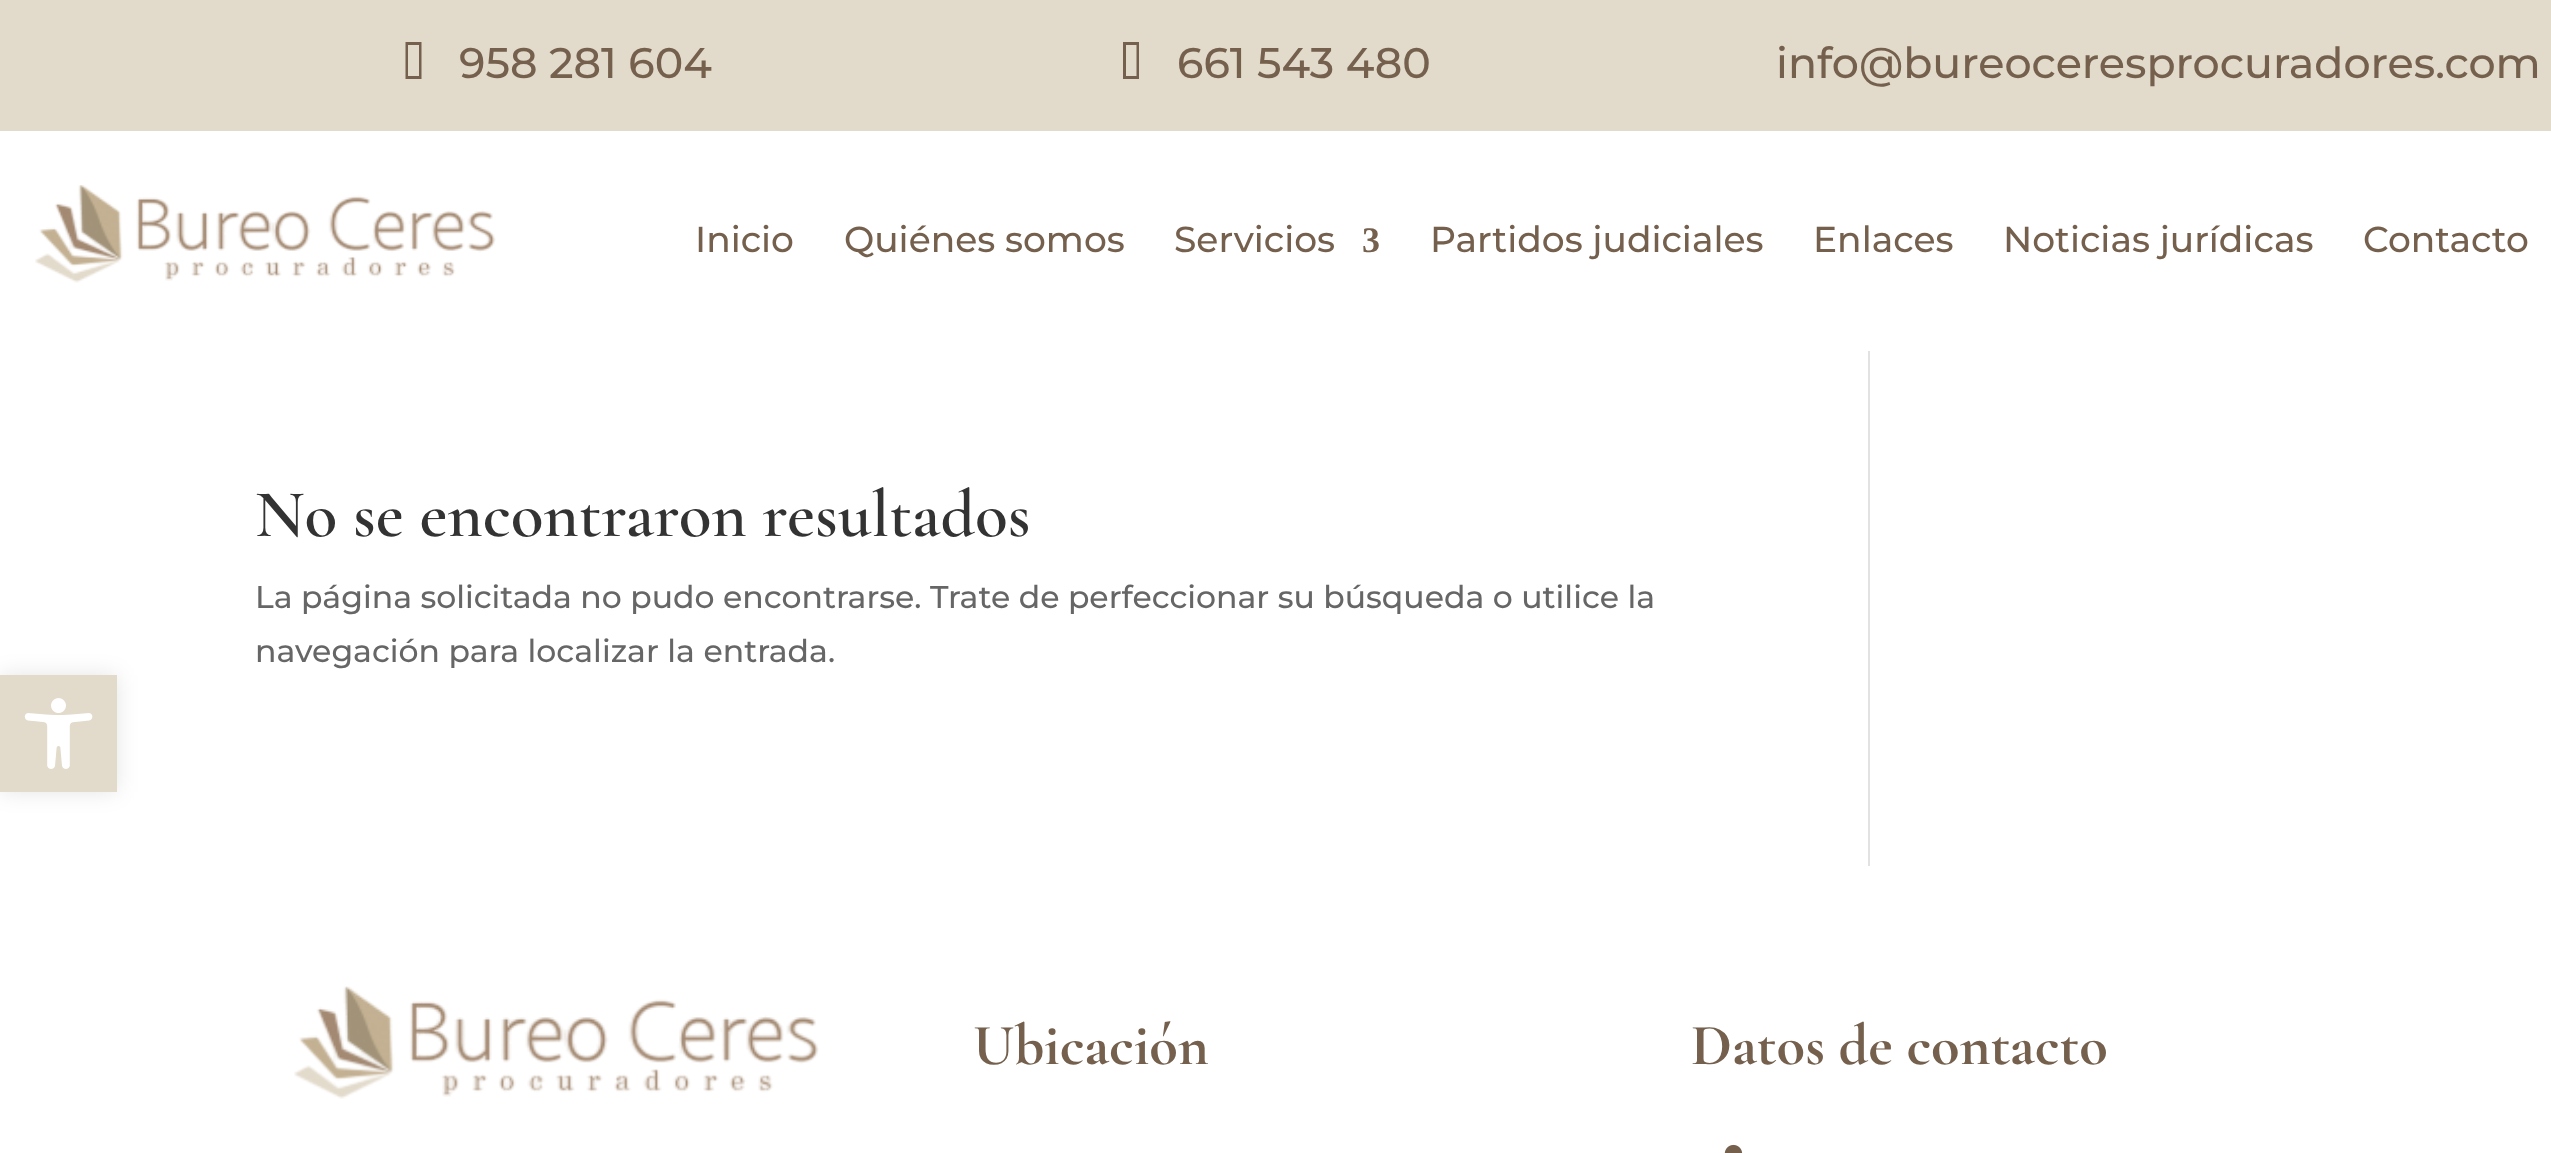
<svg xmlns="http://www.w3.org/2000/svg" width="2551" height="1153">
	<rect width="100%" height="100%" fill="#FFFFFF" />
	<rect x="0" y="675" width="117" height="117" fill="#000000" fill-opacity="0.1" filter="blur(11px)" />
	<rect x="0" y="675" width="117" height="117" fill="#E2DACB" />
	<image x="24" y="698" width="69" height="71" href="assets/img1.png" />
	<rect x="0" y="0" width="2551" height="131" fill="#E2DACB" />
	<path d="M408 76V45H419V76ZM405.5 79H421.5V42H405.5Z" fill="#75604D" />
	<text x="459" y="78" font-family="Montserrat" font-size="42.75" font-weight="500" fill="#75604D">958 281 604</text>
	<path d="M1126 76V45H1136.5V76ZM1123 79H1139V42H1123Z" fill="#75604D" />
	<g font-family="Montserrat" font-size="42.75" font-weight="500" fill="#75604D">
		<text x="1177" y="78">661 543 480</text>
		<text x="1776" y="78">info@bureoceresprocuradores.com</text>
	</g>
	<image x="35" y="185" width="461" height="98" href="assets/img2.png" />
	<g font-family="Montserrat" font-size="36" font-weight="500" fill="#75604D">
		<text x="695" y="252">Inicio</text>
		<text x="844" y="252">Quiénes somos</text>
		<text x="1174" y="252">Servicios</text>
	</g>
	<text x="1362" y="252" font-family="Liberation Serif" font-size="36" font-weight="700" fill="#75604D">3</text>
	<g font-family="Montserrat" font-size="36" font-weight="500" fill="#75604D">
		<text x="1430" y="252">Partidos judiciales</text>
		<text x="1813" y="252">Enlaces</text>
		<text x="2003" y="252">Noticias jurídicas</text>
		<text x="2363" y="252">Contacto</text>
	</g>
	<text x="255" y="536" font-family="Cormorant Garamond" font-size="67.5" font-weight="600" fill="#333333">No se encontraron resultados</text>
	<g font-family="Montserrat" font-size="31.5" font-weight="500" fill="#666666">
		<text x="255" y="608">La página solicitada no pudo encontrarse. Trate de perfeccionar su búsqueda o utilice la</text>
		<text x="255" y="662">navegación para localizar la entrada.</text>
	</g>
	<rect x="1868" y="351" width="2" height="515" fill="#E2E2E2" />
	<image x="294" y="986" width="525" height="113" href="assets/img3.png" />
	<g font-family="Cormorant Garamond" font-size="58.5" font-weight="700" fill="#75604D">
		<text x="973" y="1064">Ubicación</text>
		<text x="1691" y="1064">Datos de contacto</text>
	</g>
	<image x="1724" y="1144" width="19" height="9" href="assets/img4.png" />
</svg>
